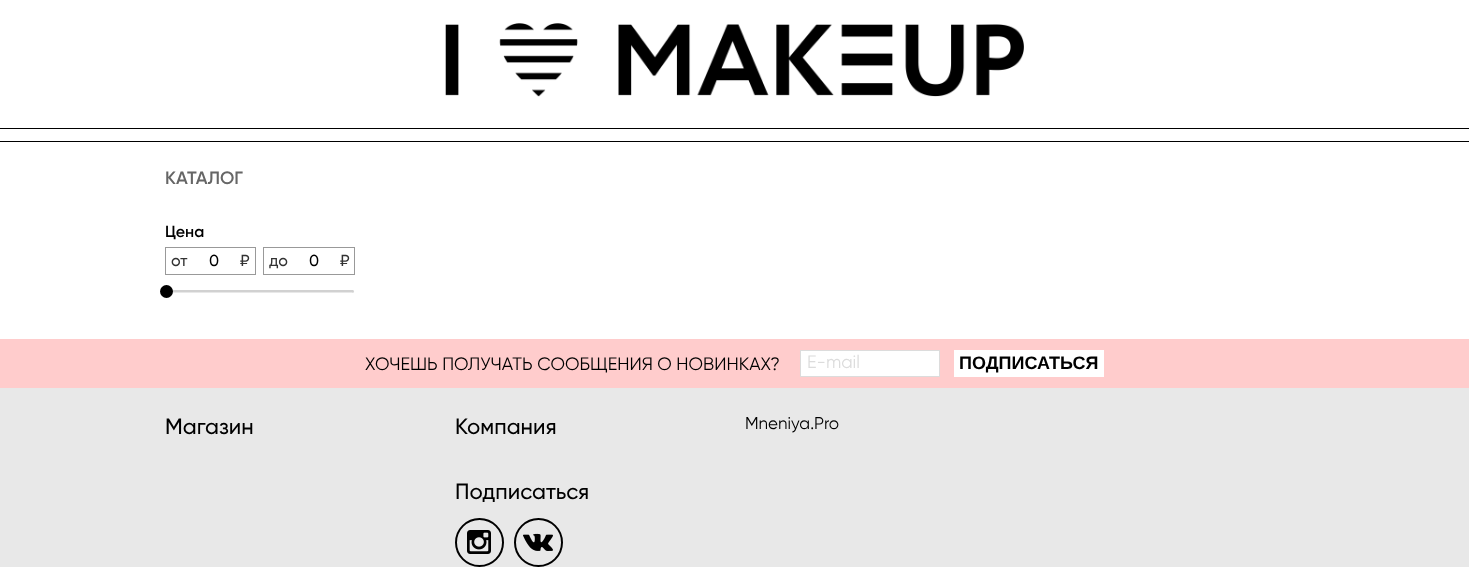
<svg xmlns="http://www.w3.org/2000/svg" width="1469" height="567">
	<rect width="100%" height="100%" fill="#FFFFFF" />
	<image x="445" y="23" width="579" height="74" href="assets/img1.png" />
	<rect x="0" y="128" width="1469" height="1" fill="#000000" />
	<rect x="0" y="141" width="1469" height="1" fill="#000000" />
	<text x="165" y="184" font-family="Gilroy" font-size="18" font-weight="600" fill="#666666">КАТАЛОГ</text>
	<text x="165" y="237" font-family="Gilroy" font-size="16" font-weight="600" fill="#000000">Цена</text>
	<rect x="165.5" y="247.5" width="90" height="27" fill="none" stroke="#999999" />
	<text x="171" y="266" font-family="Gilroy" font-size="16" font-weight="500" fill="#333333">от</text>
	<text x="209" y="266" font-family="Gilroy" font-size="16" font-weight="500" fill="#000000">0</text>
	<text x="240" y="266" font-family="Gilroy" font-size="16" font-weight="500" fill="#333333">₽</text>
	<rect x="263.5" y="247.5" width="91" height="27" fill="none" stroke="#999999" />
	<text x="269" y="266" font-family="Gilroy" font-size="16" font-weight="500" fill="#333333">до</text>
	<text x="309" y="266" font-family="Gilroy" font-size="16" font-weight="500" fill="#000000">0</text>
	<text x="340" y="266" font-family="Gilroy" font-size="16" font-weight="500" fill="#333333">₽</text>
	<rect x="170" y="290" width="184" height="3" rx="1.5" fill="#E8E8E8" />
	<path d="M172 292H353L352 293C354 293 355 290 352 290H172C169 290 170 293 172 293C171 293 171 292 172 292Z" fill="#D1D1D1" />
	<circle cx="166.5" cy="291.5" r="6.5" fill="#000000" />
	<rect x="0" y="339" width="1469" height="49" fill="#FFCCCC" />
	<text x="365" y="370" font-family="Gilroy" font-size="18" fill="#000000">ХОЧЕШЬ ПОЛУЧАТЬ СООБЩЕНИЯ О НОВИНКАХ?</text>
	<rect x="800.5" y="350.5" width="139" height="26" fill="#FFFFFF" stroke="#DCDCDC" />
	<text x="807" y="368" font-family="Gilroy" font-size="18" fill="#DCDCDC">E-mail</text>
	<rect x="954" y="350" width="150" height="27" fill="#FFFFFF" />
	<text x="959" y="369" font-family="Liberation Sans" font-size="18" font-weight="700" fill="#000000">ПОДПИСАТЬСЯ</text>
	<rect x="0" y="388" width="1469" height="179" fill="#E8E8E8" />
	<g font-family="Gilroy" font-size="22" font-weight="500" fill="#000000">
		<text x="165" y="434">Магазин</text>
		<text x="455" y="434">Компания</text>
		<text x="455" y="499">Подписаться</text>
	</g>
	<circle cx="479.5" cy="542.5" r="23.5" fill="none" stroke="#000000" stroke-width="2" />
	<image x="467" y="530" width="24" height="24" href="assets/img2.png" />
	<circle cx="538.5" cy="542.5" r="23.5" fill="none" stroke="#000000" stroke-width="2" />
	<image x="523" y="533" width="30" height="18" href="assets/img3.png" />
	<text x="745" y="429" font-family="Gilroy" font-size="17" fill="#000000">Mneniya.Pro</text>
</svg>
